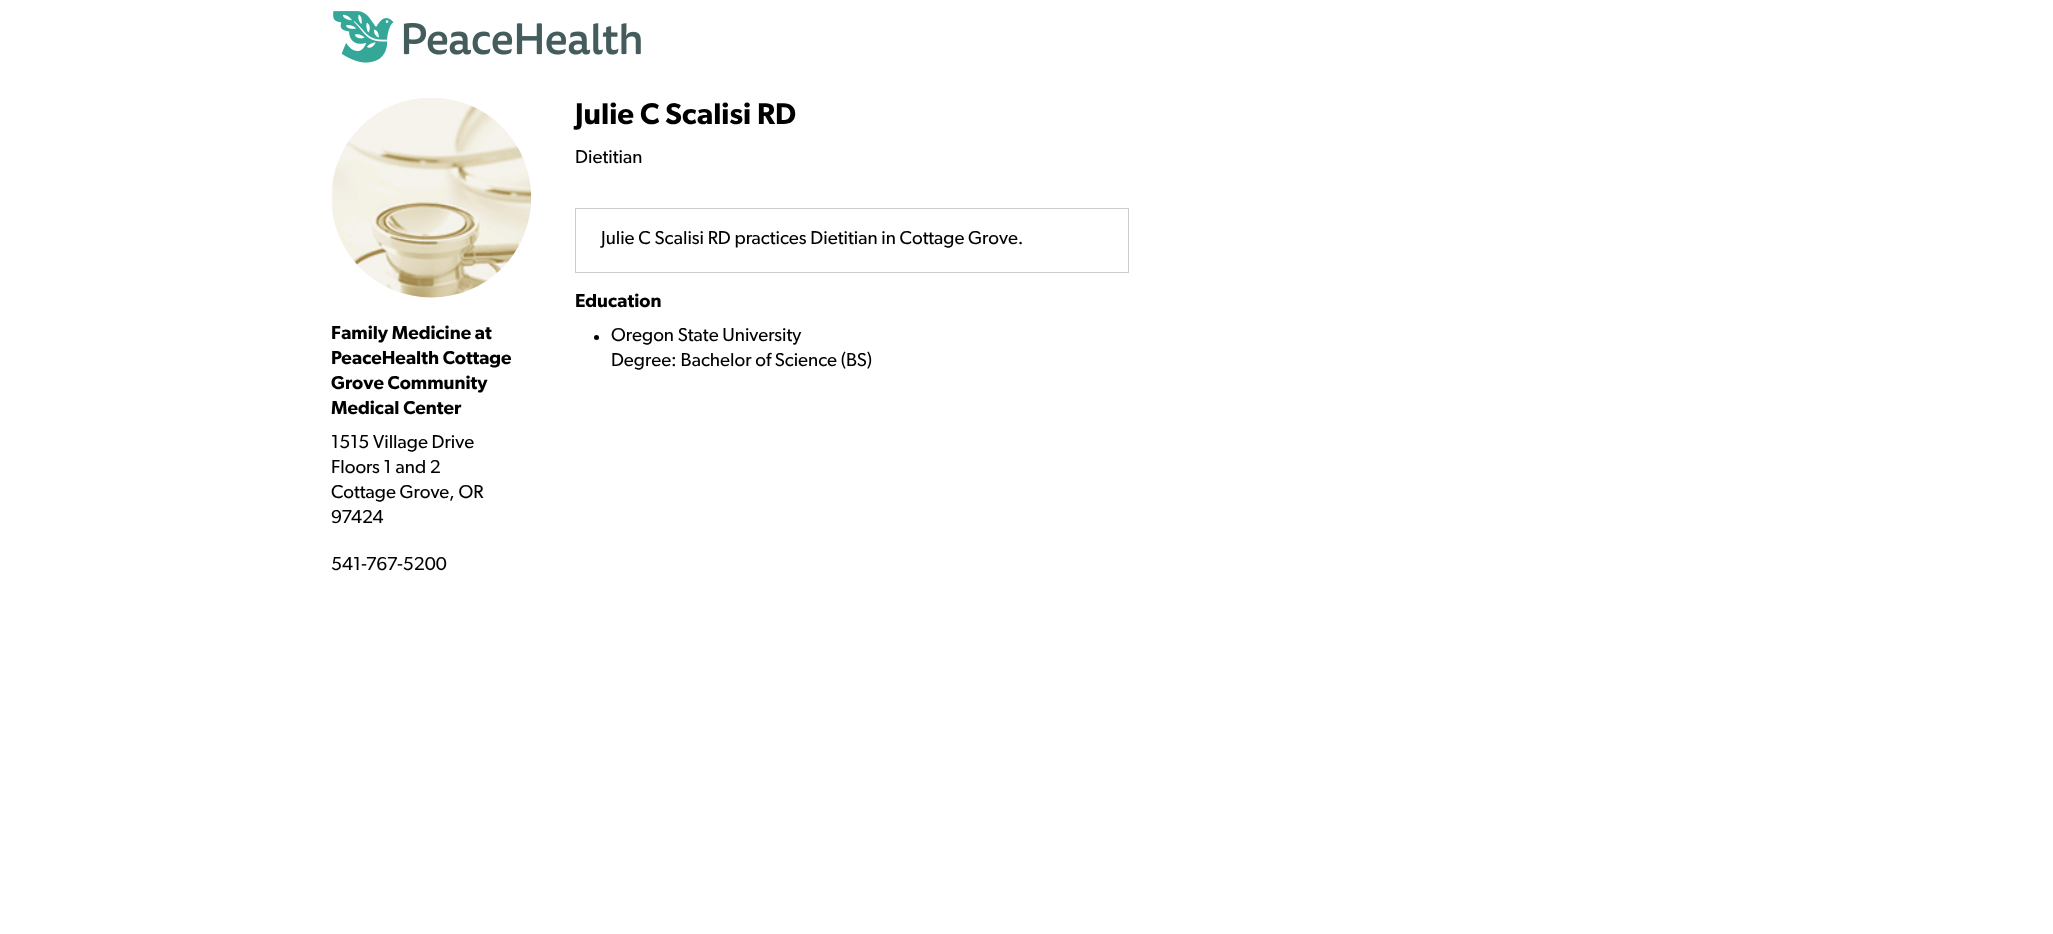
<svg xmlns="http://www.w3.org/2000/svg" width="2053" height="934">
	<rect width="100%" height="100%" fill="#FFFFFF" />
	<image x="333" y="11" width="308" height="52" href="assets/img1.png" />
	<text x="575" y="124" font-family="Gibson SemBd" font-size="30" font-weight="600" fill="#000000">Julie C Scalisi RD</text>
	<text x="575" y="163" font-family="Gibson" font-size="18.75" fill="#000000">Dietitian</text>
	<rect x="575.5" y="208.5" width="553" height="64" fill="none" stroke="#CCCCCC" />
	<text x="601" y="244" font-family="Gibson" font-size="18.75" fill="#000000">Julie C Scalisi RD practices Dietitian in Cottage Grove.</text>
	<text x="575" y="307" font-family="Gibson SemBd" font-size="18.75" font-weight="600" fill="#000000">Education</text>
	<circle cx="596.5" cy="337.5" r="2.5" fill="#000000" />
	<g font-family="Gibson" font-size="18.75" fill="#000000">
		<text x="611" y="341">Oregon State University</text>
		<text x="611" y="366">Degree: Bachelor of Science (BS)</text>
	</g>
	<image x="331" y="98" width="201" height="200" href="assets/img2.png" />
	<g font-family="Gibson SemBd" font-size="18.75" font-weight="600" fill="#000000">
		<text x="331" y="339">Family Medicine at</text>
		<text x="331" y="364">PeaceHealth Cottage</text>
		<text x="331" y="389">Grove Community</text>
		<text x="331" y="414">Medical Center</text>
	</g>
	<g font-family="Gibson" font-size="18.75" fill="#000000">
		<text x="331" y="448">1515 Village Drive</text>
		<text x="331" y="473">Floors 1 and 2</text>
		<text x="331" y="498">Cottage Grove, OR</text>
		<text x="331" y="523">97424</text>
		<text x="331" y="570">541-767-5200</text>
	</g>
</svg>
